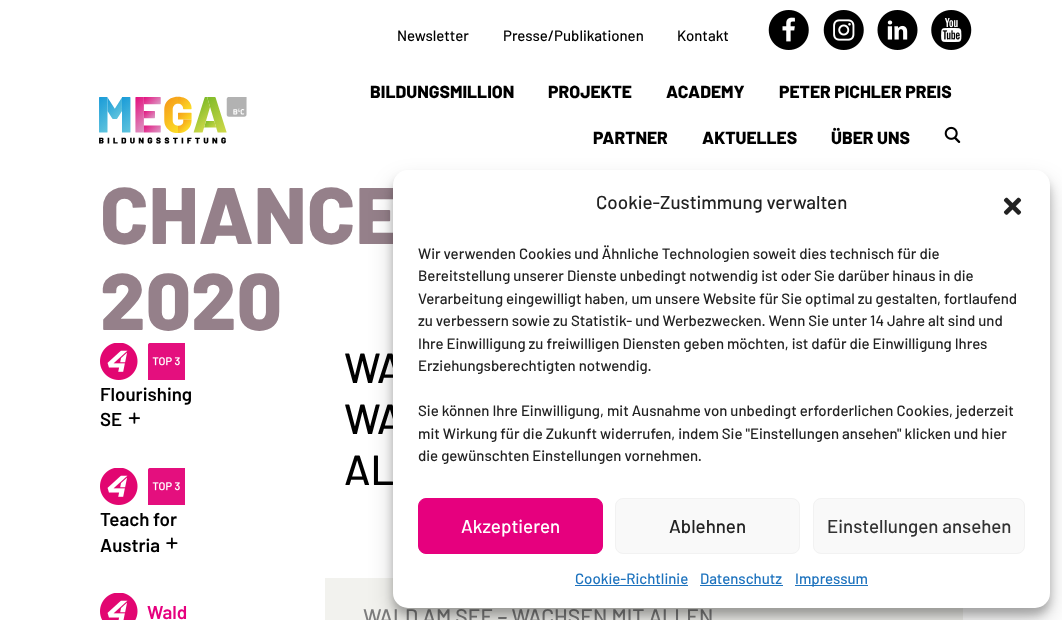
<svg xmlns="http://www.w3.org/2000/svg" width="1062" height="620">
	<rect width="100%" height="100%" fill="#FFFFFF" />
	<image x="99" y="96" width="148" height="48" href="assets/img1.png" />
	<g font-family="Barlow" font-size="15" font-weight="500" fill="#000000">
		<text x="397" y="41">Newsletter</text>
		<text x="503" y="41">Presse/Publikationen</text>
		<text x="677" y="41">Kontakt</text>
	</g>
	<image x="768" y="10" width="41" height="40" href="assets/img2.png" />
	<image x="823" y="10" width="41" height="40" href="assets/img3.png" />
	<image x="877" y="10" width="41" height="40" href="assets/img4.png" />
	<image x="931" y="10" width="41" height="40" href="assets/img5.png" />
	<g font-family="Barlow" font-size="17.5" font-weight="800" fill="#000000">
		<text x="370" y="98">BILDUNGSMILLION</text>
		<text x="548" y="98">PROJEKTE</text>
		<text x="666" y="98">ACADEMY</text>
		<text x="779" y="98">PETER PICHLER PREIS</text>
		<text x="593" y="144">PARTNER</text>
		<text x="702" y="144">AKTUELLES</text>
		<text x="831" y="144">ÜBER UNS</text>
	</g>
	<image x="944" y="126" width="17" height="17" href="assets/img6.png" />
	<g font-family="Barlow" font-size="80" font-weight="800" fill="#95808A">
		<text x="100" y="244">CHANCE</text>
		<text x="100" y="330">2020</text>
	</g>
	<image x="100" y="343" width="38" height="37" href="assets/img7.png" />
	<image x="148" y="343" width="37" height="37" href="assets/img8.png" />
	<g font-family="Barlow" font-size="18.75" font-weight="600" fill="#000000">
		<text x="100" y="401">Flourishing</text>
		<text x="100" y="426">SE</text>
	</g>
	<image x="128" y="412" width="12" height="12" href="assets/img9.png" />
	<image x="100" y="468" width="38" height="37" href="assets/img7.png" />
	<image x="148" y="468" width="37" height="37" href="assets/img8.png" />
	<g font-family="Barlow" font-size="18.75" font-weight="600" fill="#000000">
		<text x="100" y="526">Teach for</text>
		<text x="100" y="552">Austria</text>
	</g>
	<image x="166" y="537" width="12" height="12" href="assets/img10.png" />
	<image x="100" y="593" width="38" height="27" href="assets/img11.png" />
	<text x="147" y="619" font-family="Barlow" font-size="18.75" font-weight="600" fill="#E6007E">Wald</text>
	<g font-family="Barlow" font-size="42" font-weight="500" fill="#000000">
		<text x="344" y="383">WA</text>
		<text x="344" y="434">WA</text>
		<text x="344" y="485">AL</text>
	</g>
	<rect x="325" y="578" width="638" height="42" fill="#F2F2EE" />
	<text x="363" y="624" font-family="Barlow" font-size="21.25" font-weight="500" fill="#7D7D7D">WALD AM SEE – WACHSEN MIT ALLEN</text>
	<rect x="393" y="178" width="657" height="437" rx="15" fill="#000000" fill-opacity="0.23" filter="blur(4px)" />
	<rect x="393" y="183" width="657" height="437" rx="15" fill="#000000" fill-opacity="0.19" filter="blur(12.5px)" />
	<rect x="393" y="170" width="657" height="438" rx="15" fill="#FFFFFF" />
	<text x="596" y="209" font-family="Barlow" font-size="18.75" font-weight="500" fill="#222222">Cookie-Zustimmung verwalten</text>
	<image x="1003" y="197" width="19" height="18" href="assets/img12.png" />
	<g font-family="Barlow" font-size="15" font-weight="500" fill="#222222">
		<text x="418" y="259">Wir verwenden Cookies und Ähnliche Technologien soweit dies technisch für die</text>
		<text x="418" y="281">Bereitstellung unserer Dienste unbedingt notwendig ist oder Sie darüber hinaus in die</text>
		<text x="418" y="304">Verarbeitung eingewilligt haben, um unsere Website für Sie optimal zu gestalten, fortlaufend</text>
		<text x="418" y="326">zu verbessern sowie zu Statistik- und Werbezwecken. Wenn Sie unter 14 Jahre alt sind und</text>
		<text x="418" y="349">Ihre Einwilligung zu freiwilligen Diensten geben möchten, ist dafür die Einwilligung Ihres</text>
		<text x="418" y="371">Erziehungsberechtigten notwendig.</text>
		<text x="418" y="416">Sie können Ihre Einwilligung, mit Ausnahme von unbedingt erforderlichen Cookies, jederzeit</text>
		<text x="418" y="439">mit Wirkung für die Zukunft widerrufen, indem Sie "Einstellungen ansehen" klicken und hier</text>
		<text x="418" y="461">die gewünschten Einstellungen vornehmen.</text>
	</g>
	<rect x="418.5" y="498.5" width="184" height="55" rx="7.5" fill="#E6007E" stroke="#E6007E" />
	<text x="461" y="533" font-family="Barlow" font-size="18.75" font-weight="500" fill="#FFFFFF">Akzeptieren</text>
	<rect x="615.5" y="498.5" width="184" height="55" rx="7.5" fill="#F9F9F9" stroke="#F2F2F2" />
	<text x="669" y="533" font-family="Barlow" font-size="18.75" font-weight="500" fill="#222222">Ablehnen</text>
	<rect x="813.5" y="498.5" width="211" height="55" rx="7.5" fill="#F9F9F9" stroke="#F2F2F2" />
	<text x="827" y="533" font-family="Barlow" font-size="18.75" font-weight="500" fill="#333333">Einstellungen ansehen</text>
	<text x="575" y="584" font-family="Barlow" font-size="15" font-weight="500" fill="#1E73BE">Cookie-Richtlinie</text>
	<rect x="575" y="585" width="113" height="1" fill="#1E73BE" />
	<text x="700" y="584" font-family="Barlow" font-size="15" font-weight="500" fill="#1E73BE">Datenschutz</text>
	<rect x="700" y="585" width="83" height="1" fill="#1E73BE" />
	<rect x="795" y="585" width="73" height="1" fill="#1E73BE" />
	<text x="795" y="584" font-family="Barlow" font-size="15" font-weight="500" fill="#1E73BE">Impressum</text>
</svg>
